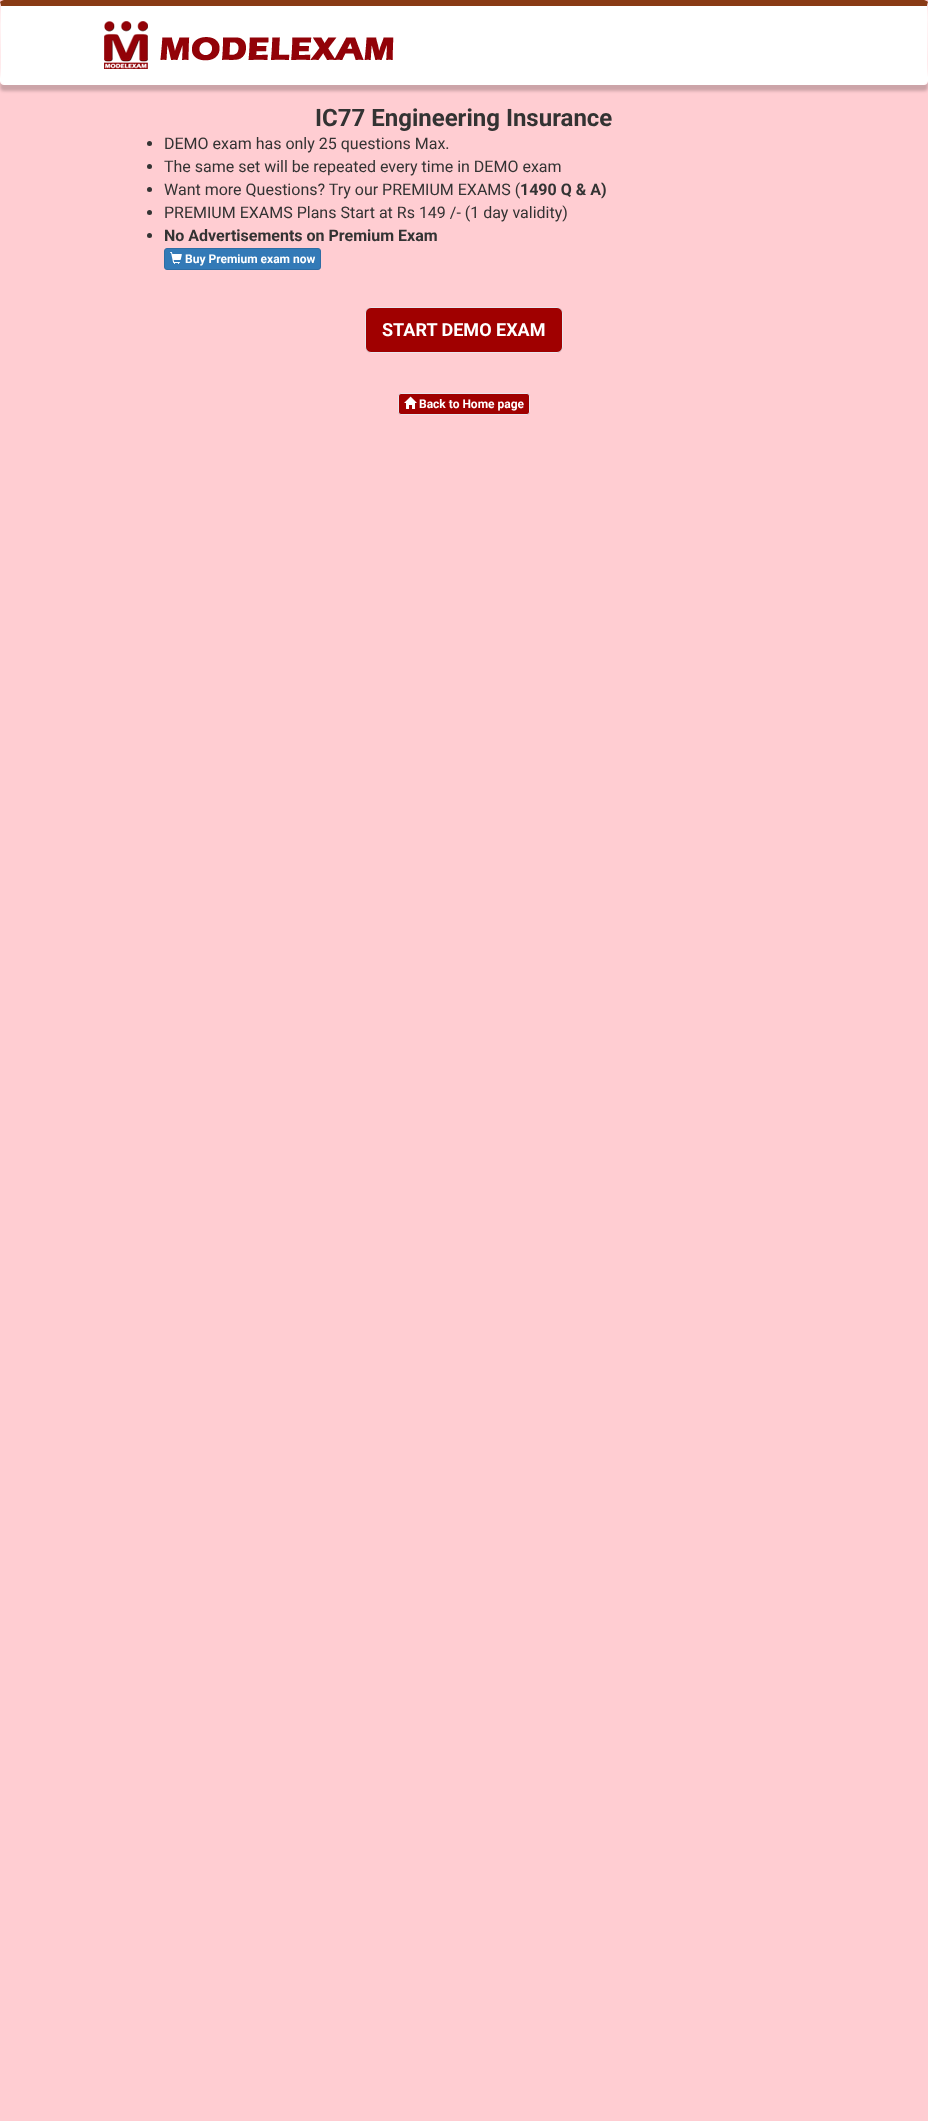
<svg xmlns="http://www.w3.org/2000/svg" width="928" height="2121">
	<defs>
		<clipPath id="clip1"><path d="M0 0H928V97H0ZM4 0H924C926 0 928 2 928 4V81C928 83 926 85 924 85H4C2 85 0 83 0 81V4C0 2 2 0 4 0Z" clip-rule="evenodd" /></clipPath>
	</defs>
	<rect width="100%" height="100%" fill="#FFCDD2" />
	<g clip-path="url(#clip1)">
		<rect x="0" y="6" width="928" height="85" rx="4" fill="#000000" fill-opacity="0.2" filter="blur(1.5px)" />
	</g>
	<path d="M4 6H927V81C927 83 926 84 924 84H4C2 84 1 83 1 81V6Z" fill="#FFFFFF" />
	<path d="M4 0C3 0 1 1 0 2L1 6H927L928 2C927 1 925 0 924 0Z" fill="#893B15" />
	<path d="M928 81V4V2C926 13 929 81 926 83L927 84Z" fill="#FFFFFF" />
	<path d="M4 85H924L927 84L926 83L924 84H4L2 83L1 84Z" fill="#FFFFFF" />
	<path d="M0 4V81L1 84L2 83C-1 81 2 13 0 2Z" fill="#FFFFFF" />
	<image x="104" y="21" width="290" height="48" href="assets/img1.png" />
	<text x="315" y="126" font-family="Roboto" font-size="24" font-weight="700" fill="#333333">IC77 Engineering Insurance</text>
	<circle cx="149.5" cy="143.5" r="2.5" fill="#333333" />
	<text x="164" y="149" font-family="Roboto" font-size="16" fill="#333333">DEMO exam has only 25 questions Max.</text>
	<circle cx="149.5" cy="166.5" r="2.5" fill="#333333" />
	<text x="164" y="172" font-family="Roboto" font-size="16" fill="#333333">The same set will be repeated every time in DEMO exam</text>
	<circle cx="149.5" cy="189.5" r="2.5" fill="#333333" />
	<text x="164" y="195" font-family="Roboto" font-size="16" fill="#333333">Want more Questions? Try our PREMIUM EXAMS (</text>
	<text x="520" y="195" font-family="Roboto" font-size="16" font-weight="700" fill="#333333">1490 Q &amp; A)</text>
	<circle cx="149.5" cy="212.5" r="2.5" fill="#333333" />
	<text x="164" y="218" font-family="Roboto" font-size="16" fill="#333333">PREMIUM EXAMS Plans Start at Rs 149 /- (1 day validity)</text>
	<circle cx="149.5" cy="235.5" r="2.5" fill="#333333" />
	<text x="164" y="241" font-family="Roboto" font-size="16" font-weight="700" fill="#333333">No Advertisements on Premium Exam</text>
	<rect x="164.5" y="248.5" width="156" height="21" rx="2.5" fill="#337AB7" stroke="#2E6DA4" />
	<image x="170" y="252" width="12" height="12" href="assets/img2.png" />
	<text x="185" y="263" font-family="Roboto" font-size="12" font-weight="700" fill="#FFFFFF">Buy Premium exam now</text>
	<rect x="365.5" y="307.5" width="197" height="45" rx="5.5" fill="#A00000" stroke="#E7E6ED" />
	<text x="382" y="336" font-family="Roboto" font-size="18" font-weight="700" fill="#FFFFFF">START DEMO EXAM</text>
	<rect x="398.5" y="393.5" width="131" height="21" rx="2.5" fill="#A00000" stroke="#E7E6ED" />
	<image x="404" y="396" width="13" height="13" href="assets/img3.png" />
	<text x="419" y="408" font-family="Roboto" font-size="12" font-weight="700" fill="#FFFFFF">Back to Home page</text>
</svg>
